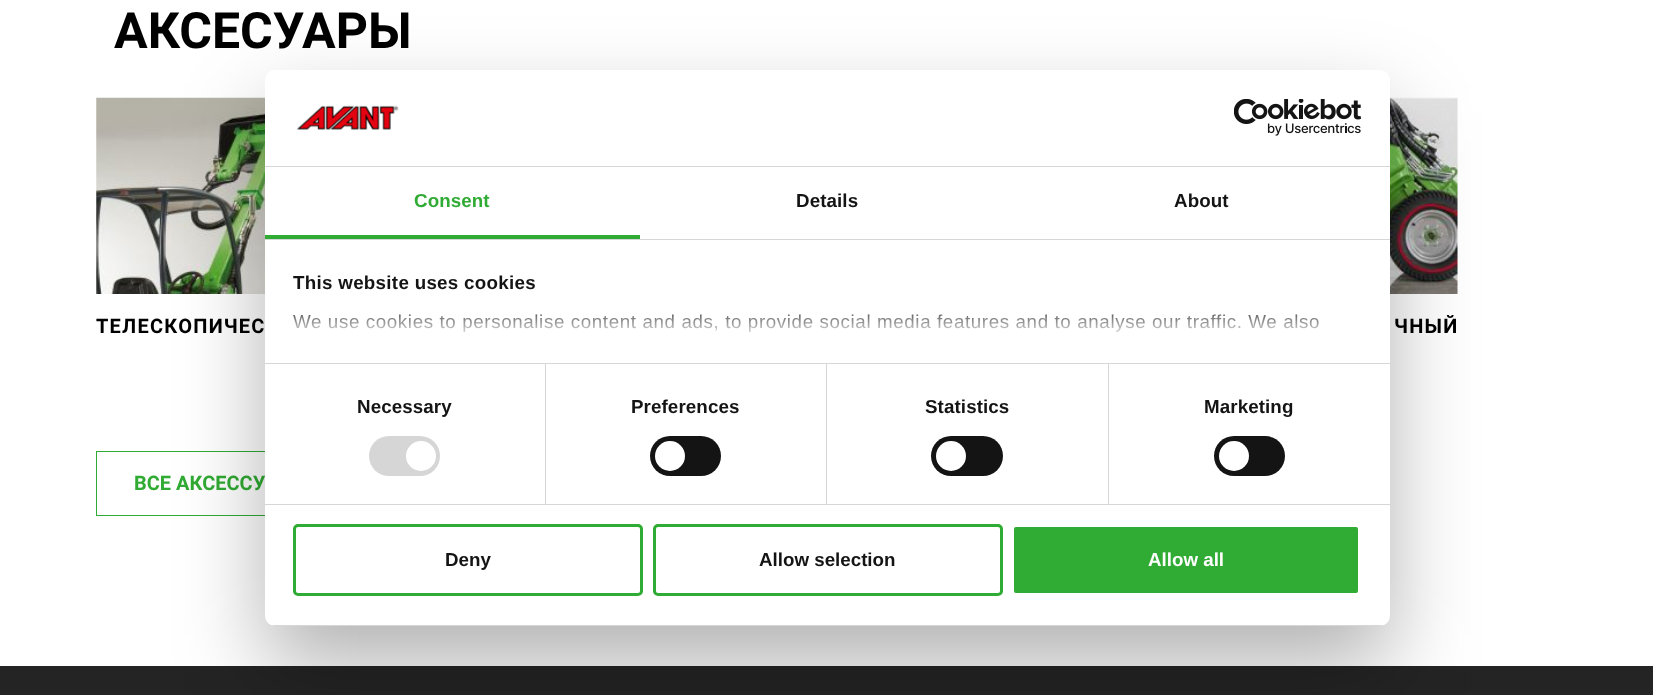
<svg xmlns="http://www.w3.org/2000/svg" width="1653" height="695">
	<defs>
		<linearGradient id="g1" gradientUnits="userSpaceOnUse" x1="814" y1="362" x2="814" y2="301"><stop offset="0" stop-color="#FFFFFF" /><stop offset="0.5" stop-color="#FFFFFF" stop-opacity="0.8" /><stop offset="1" stop-color="#FFFFFF" stop-opacity="0" /></linearGradient>
		<clipPath id="clip1"><rect x="265" y="70" width="1125" height="556" rx="10" /></clipPath>
	</defs>
	<rect width="100%" height="100%" fill="#FFFFFF" />
	<text x="114" y="48" font-family="Roboto" font-size="50" font-weight="700" fill="#000000">АКСЕСУАРЫ</text>
	<image x="96" y="97" width="169" height="197" href="assets/img1.png" />
	<text x="96" y="333" font-family="Roboto" font-size="20" font-weight="700" letter-spacing="1.25" fill="#000000">ТЕЛЕСКОПИЧЕС</text>
	<image x="1390" y="97" width="68" height="197" href="assets/img2.png" />
	<text x="1394" y="333" font-family="Roboto" font-size="20" font-weight="700" letter-spacing="1.25" fill="#000000">ЧНЫЙ</text>
	<rect x="96.5" y="451.5" width="251" height="64" fill="none" stroke="#30AB33" />
	<text x="134" y="490" font-family="Roboto" font-size="20" font-weight="700" fill="#30AB33">ВСЕ АКСЕССУ</text>
	<rect x="0" y="666" width="1653" height="29" fill="#242424" />
	<rect x="265" y="110" width="1125" height="556" rx="10" fill="#000000" fill-opacity="0.3" filter="blur(42.5px)" />
	<rect x="265" y="70" width="1125" height="556" rx="10" fill="#FFFFFF" />
	<rect x="265" y="166" width="1125" height="1" fill="#D6D6D6" />
	<image x="296" y="105" width="103" height="25" href="assets/img3.png" />
	<image x="1234" y="99" width="127" height="37" href="assets/img4.png" />
	<rect x="265" y="239" width="1125" height="1" fill="#D6D6D6" />
	<rect x="265" y="235" width="375" height="4" fill="#30AB33" />
	<text x="414" y="207" font-family="Liberation Sans" font-size="18.75" font-weight="700" letter-spacing="0.1" fill="#30AB33">Consent</text>
	<g font-family="Liberation Sans" font-size="18.75" font-weight="700" letter-spacing="0.1" fill="#141414">
		<text x="796" y="207">Details</text>
		<text x="1174" y="207">About</text>
	</g>
	<rect x="265" y="363" width="1125" height="1" fill="#D6D6D6" />
	<text x="293" y="289" font-family="Liberation Sans" font-size="18.75" font-weight="700" letter-spacing="0.3" fill="#141414">This website uses cookies</text>
	<text x="293" y="328" font-family="Liberation Sans" font-size="18.75" letter-spacing="0.62" fill="#141414">We use cookies to personalise content and ads, to provide social media features and to analyse our traffic. We also</text>
	<rect x="292" y="314" width="1027" height="18" fill="url(#g1)" />
	<rect x="265" y="504" width="1125" height="1" fill="#D6D6D6" />
	<rect x="545" y="364" width="1" height="140" fill="#D6D6D6" />
	<text x="357" y="413" font-family="Liberation Sans" font-size="18.75" font-weight="700" letter-spacing="0.1" fill="#141414">Necessary</text>
	<rect x="369" y="436" width="71" height="40" rx="20" fill="#D6D6D6" />
	<circle cx="421" cy="456" r="15" fill="#FFFFFF" />
	<rect x="826" y="364" width="1" height="140" fill="#D6D6D6" />
	<text x="631" y="413" font-family="Liberation Sans" font-size="18.75" font-weight="700" letter-spacing="0.1" fill="#141414">Preferences</text>
	<rect x="650" y="436" width="71" height="40" rx="20" fill="#141414" />
	<circle cx="670" cy="456" r="15" fill="#FFFFFF" />
	<rect x="1108" y="364" width="1" height="140" fill="#D6D6D6" />
	<text x="925" y="413" font-family="Liberation Sans" font-size="18.75" font-weight="700" letter-spacing="0.1" fill="#141414">Statistics</text>
	<rect x="931" y="436" width="72" height="40" rx="20" fill="#141414" />
	<circle cx="951" cy="456" r="15" fill="#FFFFFF" />
	<text x="1204" y="413" font-family="Liberation Sans" font-size="18.75" font-weight="700" letter-spacing="0.1" fill="#141414">Marketing</text>
	<rect x="1214" y="436" width="71" height="40" rx="20" fill="#141414" />
	<circle cx="1234" cy="456" r="15" fill="#FFFFFF" />
	<g clip-path="url(#clip1)">
		<rect x="265" y="625" width="1125" height="1" fill="#D6D6D6" />
	</g>
	<rect x="294.5" y="525.5" width="347" height="69" rx="3.5" fill="none" stroke="#30AB33" stroke-width="3" />
	<text x="445" y="566" font-family="Liberation Sans" font-size="18.75" font-weight="700" fill="#141414">Deny</text>
	<rect x="654.5" y="525.5" width="347" height="69" rx="3.5" fill="none" stroke="#30AB33" stroke-width="3" />
	<text x="759" y="566" font-family="Liberation Sans" font-size="18.75" font-weight="700" fill="#141414">Allow selection</text>
	<rect x="1012.5" y="525.5" width="347" height="69" rx="3.5" fill="#30AB33" stroke="#FFFFFF" stroke-width="3" />
	<text x="1148" y="566" font-family="Liberation Sans" font-size="18.75" font-weight="700" fill="#FFFFFF">Allow all</text>
</svg>
